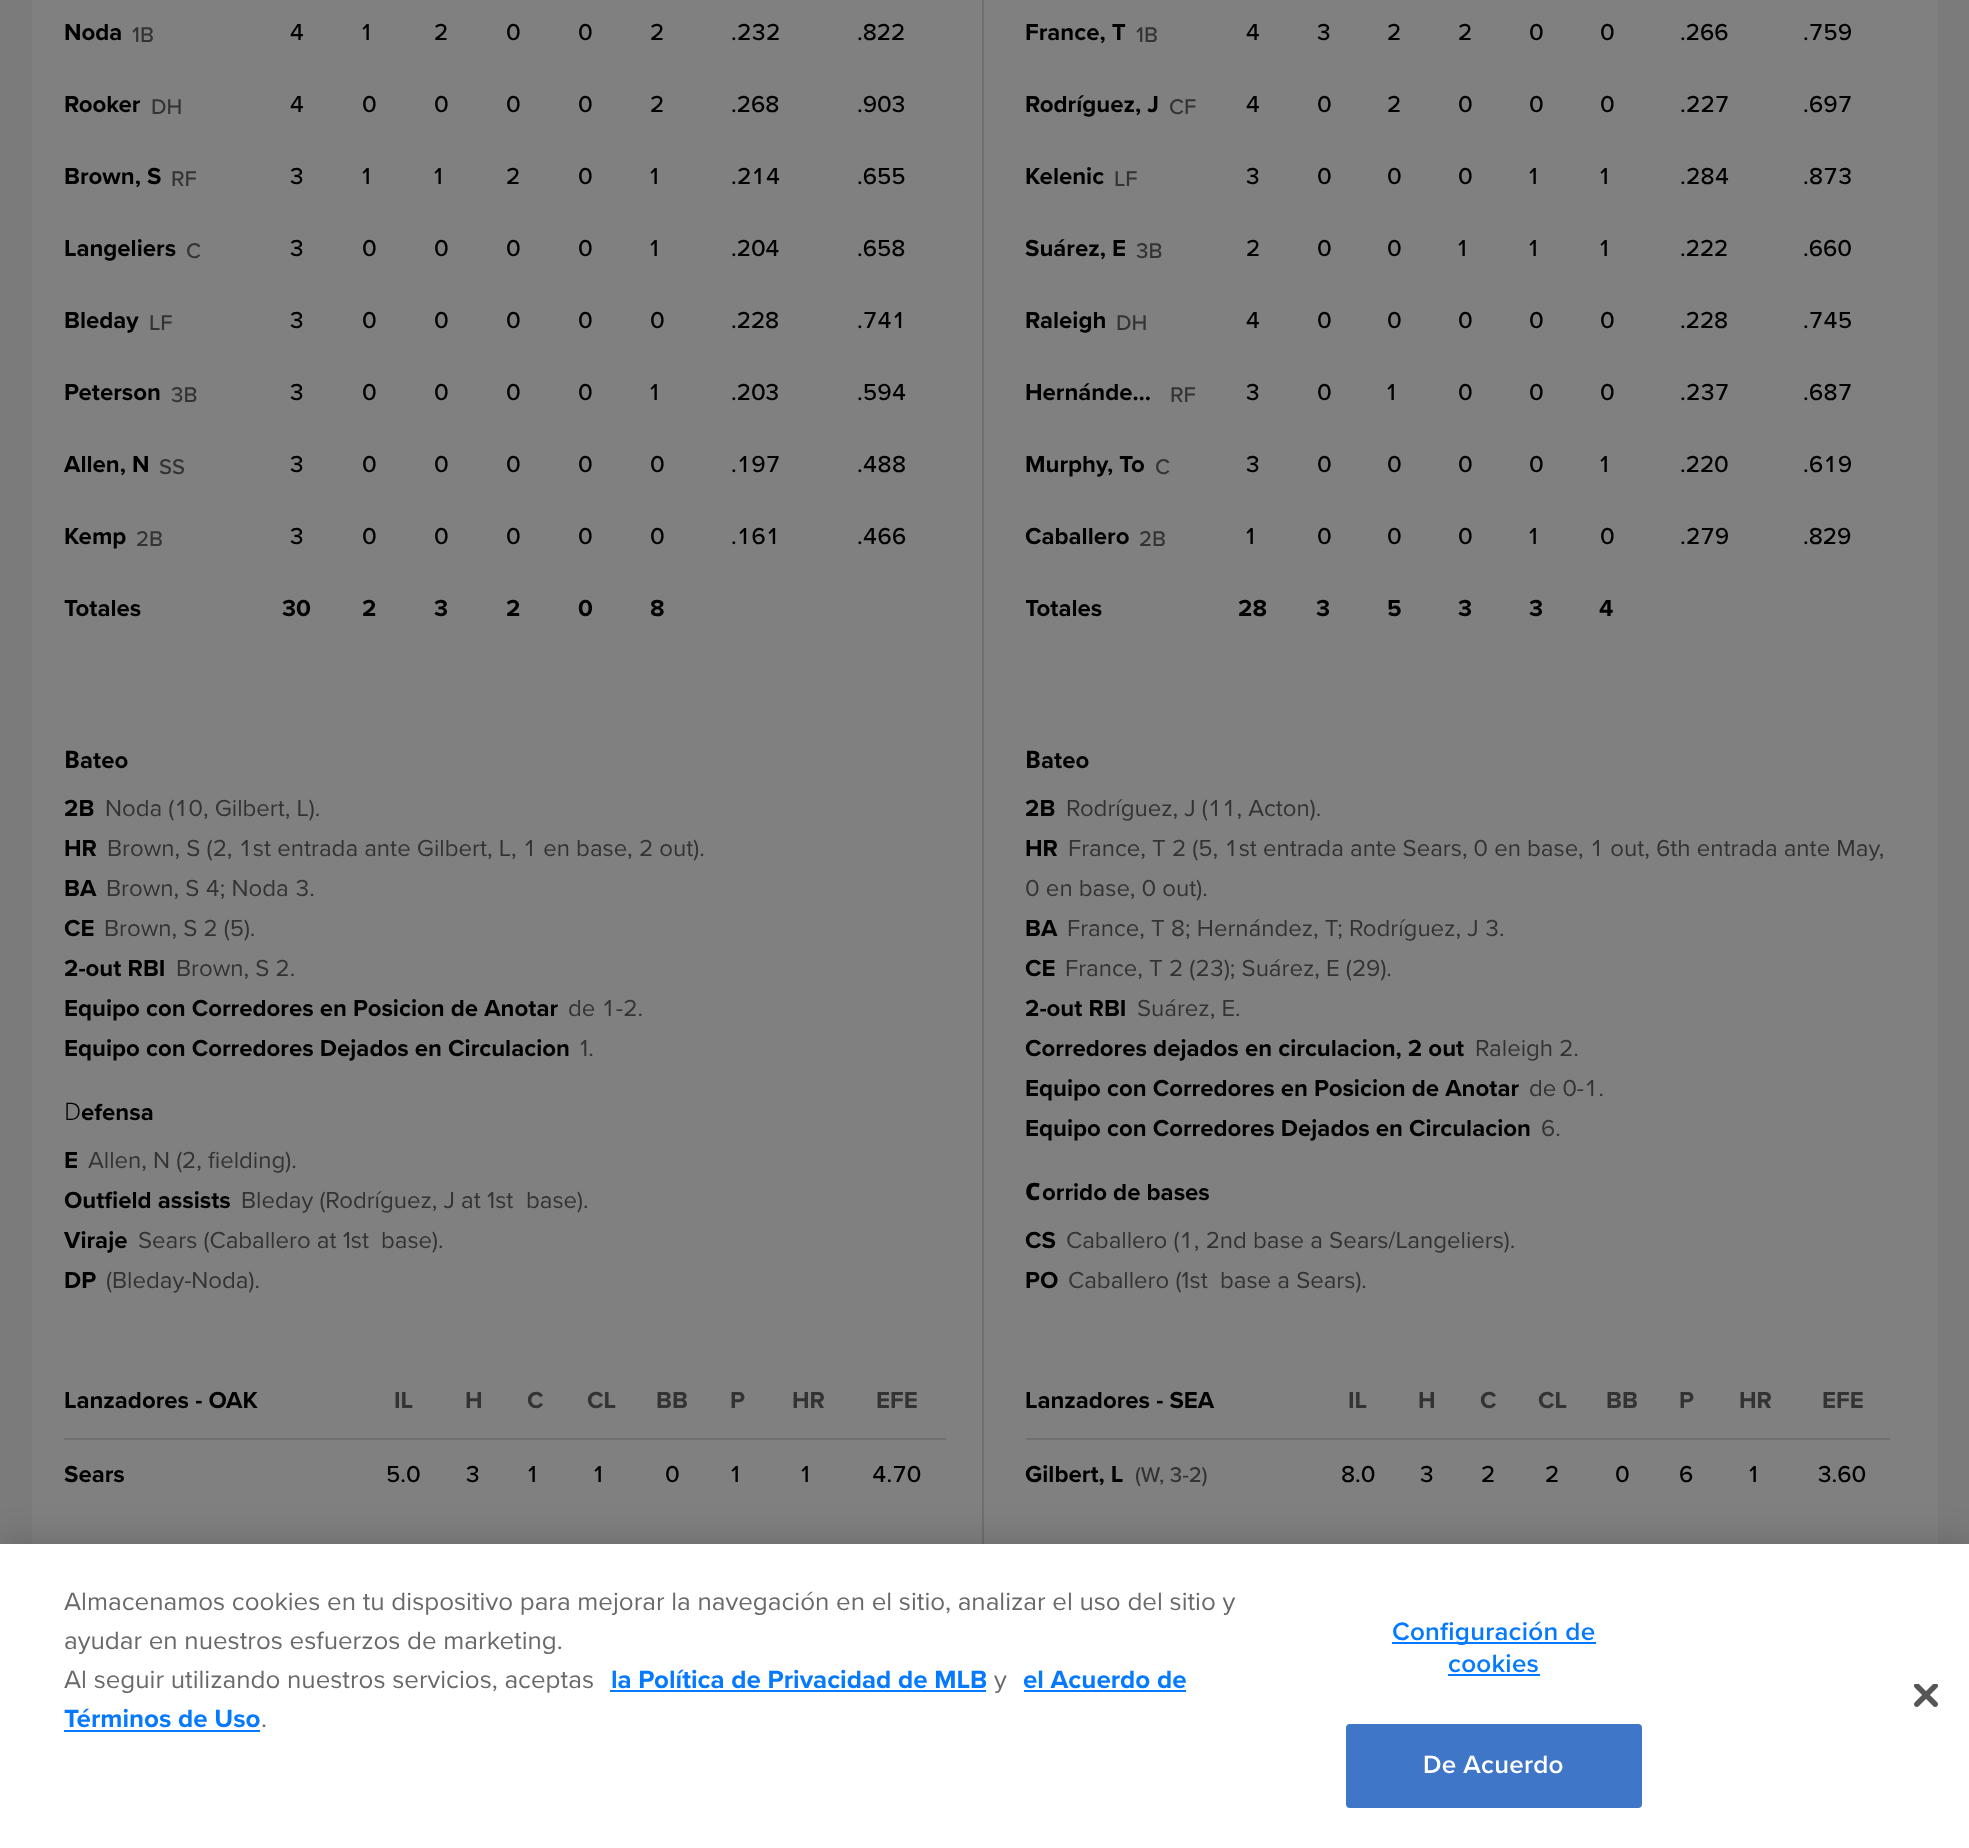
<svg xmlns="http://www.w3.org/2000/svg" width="1969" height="1848">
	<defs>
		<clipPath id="clip1"><rect x="64" y="94" width="76" height="24" /></clipPath>
		<clipPath id="clip2"><rect x="1026" y="0" width="896" height="656" /></clipPath>
	</defs>
	<rect width="100%" height="100%" fill="#7B7B7B" />
	<rect x="32" y="0" width="1906" height="1544" fill="#808080" />
	<text x="64" y="40" font-family="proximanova" font-size="24" font-weight="700" fill="#000000">Noda</text>
	<text x="132" y="42" font-family="Proxima Nova" font-size="22" font-weight="500" fill="#333333">1B</text>
	<g font-family="Proxima Nova" font-size="24" font-weight="500" fill="#000000">
		<text x="290" y="40">4</text>
		<text x="362" y="40">1</text>
		<text x="434" y="40">2</text>
		<text x="506" y="40">0</text>
		<text x="578" y="40">0</text>
		<text x="650" y="40">2</text>
	</g>
	<text x="731" y="40" font-family="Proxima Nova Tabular" font-size="24" font-weight="500" fill="#000000">.232</text>
	<text x="857" y="40" font-family="Proxima Nova" font-size="24" font-weight="500" fill="#000000">.822</text>
	<g clip-path="url(#clip1)">
		<text x="64" y="112" font-family="proximanova" font-size="24" font-weight="700" fill="#000000">Rooker</text>
	</g>
	<text x="151" y="114" font-family="Proxima Nova" font-size="22" font-weight="500" fill="#333333">DH</text>
	<g font-family="Proxima Nova" font-size="24" font-weight="500" fill="#000000">
		<text x="290" y="112">4</text>
		<text x="362" y="112">0</text>
		<text x="434" y="112">0</text>
		<text x="506" y="112">0</text>
		<text x="578" y="112">0</text>
		<text x="650" y="112">2</text>
		<text x="731" y="112">.268</text>
		<text x="857" y="112">.903</text>
	</g>
	<text x="64" y="184" font-family="proximanova" font-size="24" font-weight="700" fill="#000000">Brown, S</text>
	<text x="171" y="186" font-family="Proxima Nova" font-size="22" font-weight="500" fill="#333333">RF</text>
	<g font-family="Proxima Nova" font-size="24" font-weight="500" fill="#000000">
		<text x="290" y="184">3</text>
		<text x="362" y="184">1</text>
		<text x="434" y="184">1</text>
		<text x="506" y="184">2</text>
		<text x="578" y="184">0</text>
		<text x="650" y="184">1</text>
	</g>
	<text x="731" y="184" font-family="Proxima Nova Tabular" font-size="24" font-weight="500" fill="#000000">.214</text>
	<text x="857" y="184" font-family="Proxima Nova" font-size="24" font-weight="500" fill="#000000">.655</text>
	<text x="64" y="256" font-family="proximanova" font-size="24" font-weight="700" fill="#000000">Langeliers</text>
	<text x="186" y="258" font-family="Proxima Nova" font-size="22" font-weight="500" fill="#333333">C</text>
	<g font-family="Proxima Nova" font-size="24" font-weight="500" fill="#000000">
		<text x="290" y="256">3</text>
		<text x="362" y="256">0</text>
		<text x="434" y="256">0</text>
		<text x="506" y="256">0</text>
		<text x="578" y="256">0</text>
		<text x="650" y="256">1</text>
		<text x="731" y="256">.204</text>
		<text x="857" y="256">.658</text>
	</g>
	<text x="64" y="328" font-family="proximanova" font-size="24" font-weight="700" fill="#000000">Bleday</text>
	<text x="149" y="330" font-family="Proxima Nova" font-size="22" font-weight="500" fill="#333333">LF</text>
	<g font-family="Proxima Nova" font-size="24" font-weight="500" fill="#000000">
		<text x="290" y="328">3</text>
		<text x="362" y="328">0</text>
		<text x="434" y="328">0</text>
		<text x="506" y="328">0</text>
		<text x="578" y="328">0</text>
		<text x="650" y="328">0</text>
		<text x="731" y="328">.228</text>
	</g>
	<text x="857" y="328" font-family="Proxima Nova Tabular" font-size="24" font-weight="500" fill="#000000">.741</text>
	<text x="64" y="400" font-family="proximanova" font-size="24" font-weight="700" fill="#000000">Peterson</text>
	<text x="171" y="402" font-family="Proxima Nova" font-size="22" font-weight="500" fill="#333333">3B</text>
	<g font-family="Proxima Nova" font-size="24" font-weight="500" fill="#000000">
		<text x="290" y="400">3</text>
		<text x="362" y="400">0</text>
		<text x="434" y="400">0</text>
		<text x="506" y="400">0</text>
		<text x="578" y="400">0</text>
		<text x="650" y="400">1</text>
		<text x="731" y="400">.203</text>
	</g>
	<text x="857" y="400" font-family="Proxima Nova Tabular" font-size="24" font-weight="500" fill="#000000">.594</text>
	<text x="64" y="472" font-family="proximanova" font-size="24" font-weight="700" fill="#000000">Allen, N</text>
	<text x="159" y="474" font-family="Proxima Nova" font-size="22" font-weight="500" fill="#333333">SS</text>
	<g font-family="Proxima Nova" font-size="24" font-weight="500" fill="#000000">
		<text x="290" y="472">3</text>
		<text x="362" y="472">0</text>
		<text x="434" y="472">0</text>
		<text x="506" y="472">0</text>
		<text x="578" y="472">0</text>
		<text x="650" y="472">0</text>
	</g>
	<g font-family="Proxima Nova Tabular" font-size="24" font-weight="500" fill="#000000">
		<text x="731" y="472">.197</text>
		<text x="857" y="472">.488</text>
	</g>
	<text x="64" y="544" font-family="proximanova" font-size="24" font-weight="700" fill="#000000">Kemp</text>
	<text x="136" y="546" font-family="Proxima Nova" font-size="22" font-weight="500" fill="#333333">2B</text>
	<g font-family="Proxima Nova" font-size="24" font-weight="500" fill="#000000">
		<text x="290" y="544">3</text>
		<text x="362" y="544">0</text>
		<text x="434" y="544">0</text>
		<text x="506" y="544">0</text>
		<text x="578" y="544">0</text>
		<text x="650" y="544">0</text>
	</g>
	<g font-family="Proxima Nova Tabular" font-size="24" font-weight="500" fill="#000000">
		<text x="731" y="544">.161</text>
		<text x="857" y="544">.466</text>
	</g>
	<g font-family="proximanova" font-size="24" font-weight="700" fill="#000000">
		<text x="64" y="616">Totales</text>
		<text x="282" y="616">30</text>
		<text x="362" y="616">2</text>
		<text x="434" y="616">3</text>
		<text x="506" y="616">2</text>
		<text x="578" y="616">0</text>
		<text x="650" y="616">8</text>
	</g>
	<rect x="982" y="0" width="2" height="1544" fill="#6F6F6F" />
	<text x="1025" y="40" font-family="proximanova" font-size="24" font-weight="700" fill="#000000">France, T</text>
	<text x="1136" y="42" font-family="Proxima Nova" font-size="22" font-weight="500" fill="#333333">1B</text>
	<g font-family="Proxima Nova" font-size="24" font-weight="500" fill="#000000">
		<text x="1246" y="40">4</text>
		<text x="1317" y="40">3</text>
		<text x="1387" y="40">2</text>
		<text x="1458" y="40">2</text>
		<text x="1529" y="40">0</text>
		<text x="1600" y="40">0</text>
		<text x="1680" y="40">.266</text>
	</g>
	<text x="1803" y="40" font-family="Proxima Nova Tabular" font-size="24" font-weight="500" fill="#000000">.759</text>
	<text x="1025" y="112" font-family="proximanova" font-size="24" font-weight="700" fill="#000000">Rodríguez, J</text>
	<text x="1169" y="114" font-family="Proxima Nova" font-size="22" font-weight="500" fill="#333333">CF</text>
	<g font-family="Proxima Nova" font-size="24" font-weight="500" fill="#000000">
		<text x="1246" y="112">4</text>
		<text x="1317" y="112">0</text>
		<text x="1387" y="112">2</text>
		<text x="1458" y="112">0</text>
		<text x="1529" y="112">0</text>
		<text x="1600" y="112">0</text>
	</g>
	<g font-family="Proxima Nova Tabular" font-size="24" font-weight="500" fill="#000000">
		<text x="1680" y="112">.227</text>
		<text x="1803" y="112">.697</text>
	</g>
	<text x="1025" y="184" font-family="proximanova" font-size="24" font-weight="700" fill="#000000">Kelenic</text>
	<text x="1114" y="186" font-family="Proxima Nova" font-size="22" font-weight="500" fill="#333333">LF</text>
	<g font-family="Proxima Nova" font-size="24" font-weight="500" fill="#000000">
		<text x="1246" y="184">3</text>
		<text x="1317" y="184">0</text>
		<text x="1387" y="184">0</text>
		<text x="1458" y="184">0</text>
		<text x="1529" y="184">1</text>
		<text x="1600" y="184">1</text>
	</g>
	<g font-family="Proxima Nova Tabular" font-size="24" font-weight="500" fill="#000000">
		<text x="1680" y="184">.284</text>
		<text x="1803" y="184">.873</text>
	</g>
	<text x="1025" y="256" font-family="proximanova" font-size="24" font-weight="700" fill="#000000">Suárez, E</text>
	<text x="1136" y="258" font-family="Proxima Nova" font-size="22" font-weight="500" fill="#333333">3B</text>
	<g font-family="Proxima Nova" font-size="24" font-weight="500" fill="#000000">
		<text x="1246" y="256">2</text>
		<text x="1317" y="256">0</text>
		<text x="1387" y="256">0</text>
		<text x="1458" y="256">1</text>
		<text x="1529" y="256">1</text>
		<text x="1600" y="256">1</text>
		<text x="1680" y="256">.222</text>
		<text x="1803" y="256">.660</text>
	</g>
	<text x="1025" y="328" font-family="proximanova" font-size="24" font-weight="700" fill="#000000">Raleigh</text>
	<text x="1116" y="330" font-family="Proxima Nova" font-size="22" font-weight="500" fill="#333333">DH</text>
	<g font-family="Proxima Nova" font-size="24" font-weight="500" fill="#000000">
		<text x="1246" y="328">4</text>
		<text x="1317" y="328">0</text>
		<text x="1387" y="328">0</text>
		<text x="1458" y="328">0</text>
		<text x="1529" y="328">0</text>
		<text x="1600" y="328">0</text>
		<text x="1680" y="328">.228</text>
	</g>
	<text x="1803" y="328" font-family="Proxima Nova Tabular" font-size="24" font-weight="500" fill="#000000">.745</text>
	<text x="1025" y="400" font-family="proximanova" font-size="24" font-weight="700" fill="#000000">Hernánde…</text>
	<text x="1170" y="402" font-family="Proxima Nova" font-size="22" font-weight="500" fill="#333333">RF</text>
	<g font-family="Proxima Nova" font-size="24" font-weight="500" fill="#000000">
		<text x="1246" y="400">3</text>
		<text x="1317" y="400">0</text>
		<text x="1387" y="400">1</text>
		<text x="1458" y="400">0</text>
		<text x="1529" y="400">0</text>
		<text x="1600" y="400">0</text>
	</g>
	<g font-family="Proxima Nova Tabular" font-size="24" font-weight="500" fill="#000000">
		<text x="1680" y="400">.237</text>
		<text x="1803" y="400">.687</text>
	</g>
	<text x="1025" y="472" font-family="proximanova" font-size="24" font-weight="700" fill="#000000">Murphy, To</text>
	<text x="1155" y="474" font-family="Proxima Nova" font-size="22" font-weight="500" fill="#333333">C</text>
	<g font-family="Proxima Nova" font-size="24" font-weight="500" fill="#000000">
		<text x="1246" y="472">3</text>
		<text x="1317" y="472">0</text>
		<text x="1387" y="472">0</text>
		<text x="1458" y="472">0</text>
		<text x="1529" y="472">0</text>
		<text x="1600" y="472">1</text>
		<text x="1680" y="472">.220</text>
	</g>
	<text x="1803" y="472" font-family="Proxima Nova Tabular" font-size="24" font-weight="500" fill="#000000">.619</text>
	<text x="1025" y="544" font-family="proximanova" font-size="24" font-weight="700" fill="#000000">Caballero</text>
	<text x="1139" y="546" font-family="Proxima Nova" font-size="22" font-weight="500" fill="#333333">2B</text>
	<g font-family="Proxima Nova" font-size="24" font-weight="500" fill="#000000">
		<text x="1246" y="544">1</text>
		<text x="1317" y="544">0</text>
		<text x="1387" y="544">0</text>
		<text x="1458" y="544">0</text>
		<text x="1529" y="544">1</text>
		<text x="1600" y="544">0</text>
	</g>
	<text x="1680" y="544" font-family="Proxima Nova Tabular" font-size="24" font-weight="500" fill="#000000">.279</text>
	<text x="1803" y="544" font-family="Proxima Nova" font-size="24" font-weight="500" fill="#000000">.829</text>
	<g clip-path="url(#clip2)">
		<text x="1025" y="616" font-family="proximanova" font-size="24" font-weight="700" fill="#000000">Totales</text>
	</g>
	<g font-family="proximanova" font-size="24" font-weight="700" fill="#000000">
		<text x="1238" y="616">28</text>
		<text x="1316" y="616">3</text>
		<text x="1387" y="616">5</text>
		<text x="1458" y="616">3</text>
		<text x="1529" y="616">3</text>
		<text x="1599" y="616">4</text>
	</g>
	<text x="64" y="768" font-family="Noto Sans" font-size="24" font-weight="700" fill="#000000">B</text>
	<g font-family="proximanova" font-size="24" font-weight="700" fill="#000000">
		<text x="80" y="768">ateo</text>
		<text x="64" y="816">2B</text>
	</g>
	<text x="105" y="816" font-family="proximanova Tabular" font-size="24" fill="#333333">Noda (10, Gilbert, L).</text>
	<text x="64" y="856" font-family="proximanova" font-size="24" font-weight="700" fill="#000000">HR</text>
	<text x="107" y="856" font-family="proximanova Tabular" font-size="24" fill="#333333">Brown, S (2, 1st entrada ante Gilbert, L, 1 en base, 2 out).</text>
	<text x="64" y="896" font-family="proximanova" font-size="24" font-weight="700" fill="#000000">BA</text>
	<text x="106" y="896" font-family="proximanova Tabular" font-size="24" fill="#333333">Brown, S 4; Noda 3.</text>
	<text x="64" y="936" font-family="proximanova" font-size="24" font-weight="700" fill="#000000">CE</text>
	<text x="104" y="936" font-family="proximanova" font-size="24" fill="#333333">Brown, S 2 (5).</text>
	<text x="64" y="976" font-family="proximanova" font-size="24" font-weight="700" fill="#000000">2-out RBI</text>
	<text x="176" y="976" font-family="proximanova" font-size="24" fill="#333333">Brown, S 2.</text>
	<text x="64" y="1016" font-family="proximanova" font-size="24" font-weight="700" fill="#000000">Equipo con Corredores en Posicion de Anotar</text>
	<text x="568" y="1016" font-family="proximanova Tabular" font-size="24" fill="#333333">de 1-2.</text>
	<text x="64" y="1056" font-family="proximanova" font-size="24" font-weight="700" fill="#000000">Equipo con Corredores Dejados en Circulacion</text>
	<text x="580" y="1056" font-family="proximanova" font-size="24" fill="#333333">1.</text>
	<text x="64" y="1120" font-family="Noto Sans" font-size="24" font-weight="300" fill="#000000">D</text>
	<g font-family="proximanova" font-size="24" font-weight="700" fill="#000000">
		<text x="81" y="1120">efensa</text>
		<text x="64" y="1168">E</text>
	</g>
	<text x="88" y="1168" font-family="proximanova" font-size="24" fill="#333333">Allen, N (2, fielding).</text>
	<text x="64" y="1208" font-family="proximanova" font-size="24" font-weight="700" fill="#000000">Outfield assists</text>
	<text x="241" y="1208" font-family="proximanova" font-size="24" fill="#333333">Bleday (Rodríguez, J at 1st</text>
	<text x="526" y="1208" font-family="proximanova" font-size="24" fill="#333333">base).</text>
	<text x="64" y="1248" font-family="proximanova" font-size="24" font-weight="700" fill="#000000">Viraje</text>
	<text x="138" y="1248" font-family="proximanova" font-size="24" fill="#333333">Sears (Caballero at 1st</text>
	<text x="381" y="1248" font-family="proximanova" font-size="24" fill="#333333">base).</text>
	<text x="64" y="1288" font-family="proximanova" font-size="24" font-weight="700" fill="#000000">DP</text>
	<text x="106" y="1288" font-family="proximanova" font-size="24" fill="#333333">(Bleday-Noda).</text>
	<text x="1025" y="768" font-family="Noto Sans" font-size="24" font-weight="700" fill="#000000">B</text>
	<g font-family="proximanova" font-size="24" font-weight="700" fill="#000000">
		<text x="1041" y="768">ateo</text>
		<text x="1025" y="816">2B</text>
	</g>
	<text x="1066" y="816" font-family="proximanova Tabular" font-size="24" fill="#333333">Rodríguez, J (11, Acton).</text>
	<text x="1025" y="856" font-family="proximanova" font-size="24" font-weight="700" fill="#000000">HR</text>
	<text x="1068" y="856" font-family="proximanova Tabular" font-size="24" fill="#333333">France, T 2 (5, 1st entrada ante Sears, 0 en base, 1 out, 6th entrada ante May,</text>
	<text x="1025" y="896" font-family="proximanova" font-size="24" fill="#333333">0 en base, 0 out).</text>
	<text x="1025" y="936" font-family="proximanova" font-size="24" font-weight="700" fill="#000000">BA</text>
	<text x="1067" y="936" font-family="proximanova Tabular" font-size="24" fill="#333333">France, T 8; Hernández, T; Rodríguez, J 3.</text>
	<text x="1025" y="976" font-family="proximanova" font-size="24" font-weight="700" fill="#000000">CE</text>
	<text x="1065" y="976" font-family="proximanova Tabular" font-size="24" fill="#333333">France, T 2 (23); Suárez, E (29).</text>
	<text x="1025" y="1016" font-family="proximanova" font-size="24" font-weight="700" fill="#000000">2-out RBI</text>
	<text x="1137" y="1016" font-family="proximanova" font-size="24" fill="#333333">Suárez, E.</text>
	<text x="1025" y="1056" font-family="proximanova" font-size="24" font-weight="700" fill="#000000">Corredores dejados en circulacion, 2 out</text>
	<text x="1475" y="1056" font-family="proximanova" font-size="24" fill="#333333">Raleigh 2.</text>
	<text x="1025" y="1096" font-family="proximanova" font-size="24" font-weight="700" fill="#000000">Equipo con Corredores en Posicion de Anotar</text>
	<text x="1529" y="1096" font-family="proximanova Tabular" font-size="24" fill="#333333">de 0-1.</text>
	<text x="1025" y="1136" font-family="proximanova" font-size="24" font-weight="700" fill="#000000">Equipo con Corredores Dejados en Circulacion</text>
	<text x="1541" y="1136" font-family="proximanova" font-size="24" fill="#333333">6.</text>
	<text x="1025" y="1200" font-family="Noto Sans" font-size="24" font-weight="900" fill="#000000">C</text>
	<g font-family="proximanova" font-size="24" font-weight="700" fill="#000000">
		<text x="1042" y="1200">orrido de bases</text>
		<text x="1025" y="1248">CS</text>
	</g>
	<text x="1066" y="1248" font-family="proximanova Tabular" font-size="24" fill="#333333">Caballero (1, 2nd base a Sears/Langeliers).</text>
	<text x="1025" y="1288" font-family="proximanova" font-size="24" font-weight="700" fill="#000000">PO</text>
	<text x="1068" y="1288" font-family="proximanova" font-size="24" fill="#333333">Caballero (1st</text>
	<text x="1220" y="1288" font-family="proximanova" font-size="24" fill="#333333">base a Sears).</text>
	<rect x="64" y="1438" width="882" height="2" fill="#6F6F6F" />
	<text x="64" y="1408" font-family="proximanova" font-size="24" font-weight="700" fill="#000000">Lanzadores - OAK</text>
	<g font-family="proximanova" font-size="24" font-weight="700" fill="#333333">
		<text x="394" y="1408">IL</text>
		<text x="465" y="1408">H</text>
		<text x="527" y="1408">C</text>
		<text x="587" y="1408">CL</text>
		<text x="656" y="1408">BB</text>
		<text x="730" y="1408">P</text>
		<text x="792" y="1408">HR</text>
		<text x="876" y="1408">EFE</text>
	</g>
	<text x="64" y="1482" font-family="proximanova" font-size="24" font-weight="700" fill="#000000">Sears</text>
	<g font-family="Proxima Nova" font-size="24" font-weight="500" fill="#000000">
		<text x="386" y="1482">5.0</text>
		<text x="466" y="1482">3</text>
		<text x="528" y="1482">1</text>
		<text x="594" y="1482">1</text>
		<text x="665" y="1482">0</text>
		<text x="731" y="1482">1</text>
		<text x="801" y="1482">1</text>
	</g>
	<text x="872" y="1482" font-family="Proxima Nova Tabular" font-size="24" font-weight="500" fill="#000000">4.70</text>
	<rect x="1026" y="1438" width="864" height="2" fill="#6F6F6F" />
	<text x="1025" y="1408" font-family="proximanova" font-size="24" font-weight="700" fill="#000000">Lanzadores - SEA</text>
	<g font-family="proximanova" font-size="24" font-weight="700" fill="#333333">
		<text x="1348" y="1408">IL</text>
		<text x="1418" y="1408">H</text>
		<text x="1480" y="1408">C</text>
		<text x="1538" y="1408">CL</text>
		<text x="1606" y="1408">BB</text>
		<text x="1679" y="1408">P</text>
		<text x="1739" y="1408">HR</text>
		<text x="1822" y="1408">EFE</text>
	</g>
	<text x="1025" y="1482" font-family="proximanova" font-size="24" font-weight="700" fill="#000000">Gilbert, L</text>
	<text x="1135" y="1482" font-family="Proxima Nova" font-size="22" font-weight="500" fill="#333333">(W, 3-2)</text>
	<g font-family="Proxima Nova" font-size="24" font-weight="500" fill="#000000">
		<text x="1341" y="1482">8.0</text>
		<text x="1420" y="1482">3</text>
		<text x="1481" y="1482">2</text>
		<text x="1545" y="1482">2</text>
		<text x="1615" y="1482">0</text>
		<text x="1679" y="1482">6</text>
		<text x="1749" y="1482">1</text>
		<text x="1818" y="1482">3.60</text>
	</g>
	<rect x="0" y="1544" width="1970" height="304" fill="#000000" fill-opacity="0.2" filter="blur(18px)" />
	<rect x="0" y="1544" width="1969" height="304" fill="#FFFFFF" />
	<g font-family="proximanova" font-size="26" fill="#696969">
		<text x="64" y="1610">Almacenamos cookies en tu dispositivo para mejorar la navegación en el sitio, analizar el uso del sitio y</text>
		<text x="64" y="1649">ayudar en nuestros esfuerzos de marketing.</text>
		<text x="64" y="1688">Al seguir utilizando nuestros servicios, aceptas</text>
	</g>
	<text x="611" y="1688" font-family="proximanova" font-size="26" font-weight="700" fill="#057AFF">la Política de Privacidad de MLB</text>
	<rect x="610" y="1690" width="376" height="2" fill="#057AFF" />
	<text x="994" y="1688" font-family="proximanova" font-size="26" fill="#696969">y</text>
	<text x="1023" y="1688" font-family="proximanova" font-size="26" font-weight="700" fill="#057AFF">el Acuerdo de</text>
	<rect x="1024" y="1690" width="162" height="2" fill="#057AFF" />
	<text x="64" y="1727" font-family="proximanova" font-size="26" font-weight="700" fill="#057AFF">Términos de Uso</text>
	<rect x="64" y="1730" width="196" height="2" fill="#057AFF" />
	<text x="261" y="1727" font-family="proximanova" font-size="26" fill="#696969">.</text>
	<rect x="1392" y="1642" width="204" height="2" fill="#057AFF" />
	<g font-family="Proxima Nova" font-size="26" font-weight="600" letter-spacing="0.25" fill="#057AFF">
		<text x="1392" y="1640">Configuración de</text>
		<text x="1448" y="1672">cookies</text>
	</g>
	<rect x="1448" y="1674" width="92" height="2" fill="#057AFF" />
	<rect x="1347" y="1725" width="294" height="82" rx="3" fill="#4076C7" stroke="#4076C7" stroke-width="2" />
	<text x="1423" y="1773" font-family="Proxima Nova" font-size="26" font-weight="600" letter-spacing="0.25" fill="#FFFFFF">De Acuerdo</text>
	<image x="1914" y="1684" width="24" height="23" href="assets/img1.png" />
</svg>
